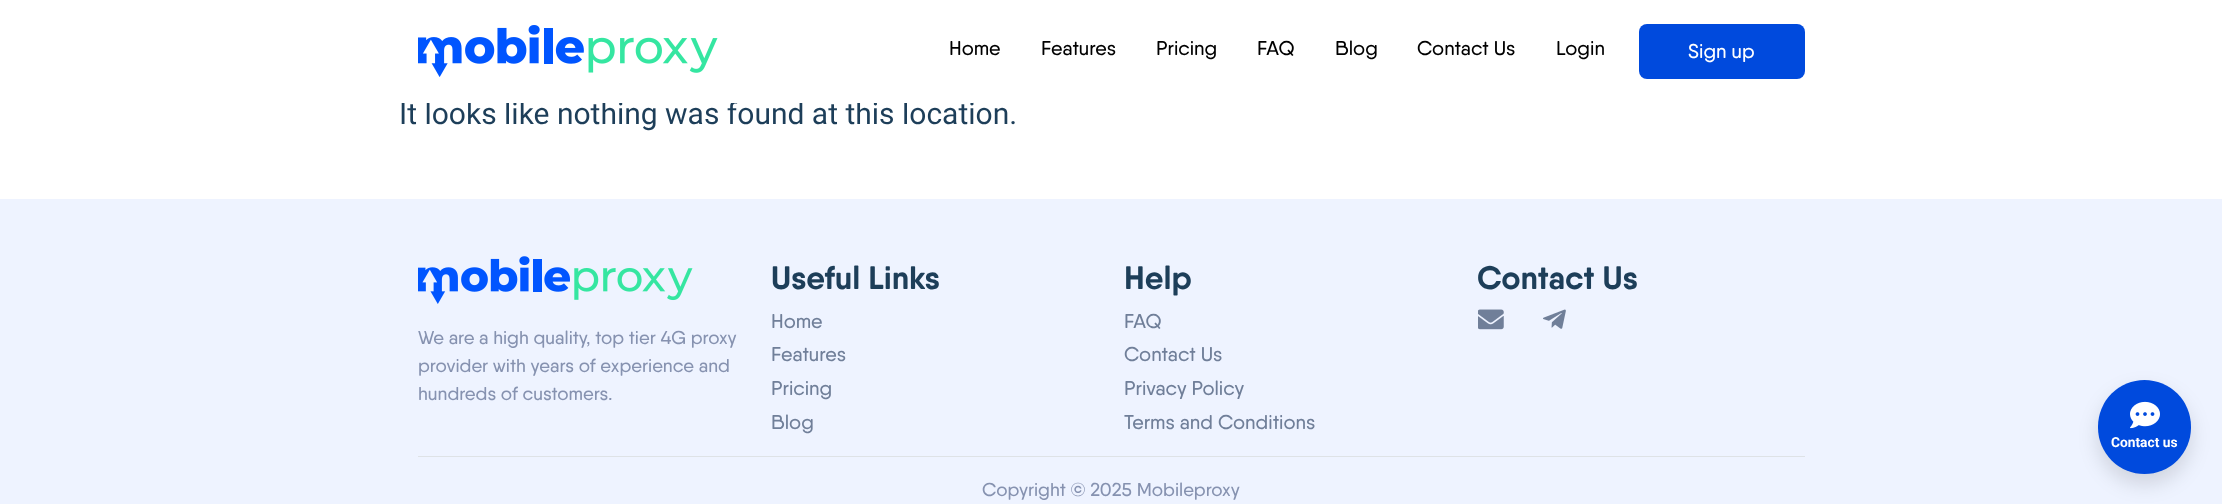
<svg xmlns="http://www.w3.org/2000/svg" width="2222" height="504">
	<rect width="100%" height="100%" fill="#FFFFFF" />
	<text x="399" y="124" font-family="Roboto" font-size="30" fill="#1D3E59">It looks like nothing was found at this location.</text>
	<rect x="401" y="101" width="572" height="2" fill="#FFFFFF" />
	<image x="418" y="25" width="300" height="52" href="assets/img1.png" />
	<g font-family="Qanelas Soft" font-size="20" font-weight="500" fill="#000000">
		<text x="949" y="55">Home</text>
		<text x="1041" y="55">Features</text>
		<text x="1156" y="55">Pricing</text>
		<text x="1257" y="55">FAQ</text>
		<text x="1335" y="55">Blog</text>
		<text x="1417" y="55">Contact Us</text>
		<text x="1556" y="55">Login</text>
	</g>
	<rect x="1639" y="24" width="166" height="55" rx="8" fill="#004ADD" />
	<text x="1688" y="58" font-family="Qanelas Soft" font-size="20" font-weight="500" fill="#FFFFFF">Sign up</text>
	<rect x="0" y="199" width="2222" height="305" fill="#EEF3FF" />
	<rect x="418" y="456" width="1387" height="1" fill="#DEE2E6" />
	<text x="771" y="289" font-family="Qanelas Soft" font-size="32.5" font-weight="700" fill="#1D3E59">Useful Links</text>
	<g font-family="Qanelas Soft" font-size="20" font-weight="500" fill="#707F99">
		<text x="771" y="328">Home</text>
		<text x="771" y="361">Features</text>
		<text x="771" y="395">Pricing</text>
		<text x="771" y="429">Blog</text>
	</g>
	<text x="1124" y="289" font-family="Qanelas Soft" font-size="32.5" font-weight="700" fill="#1D3E59">Help</text>
	<g font-family="Qanelas Soft" font-size="20" font-weight="500" fill="#707F99">
		<text x="1124" y="328">FAQ</text>
		<text x="1124" y="361">Contact Us</text>
		<text x="1124" y="395">Privacy Policy</text>
		<text x="1124" y="429">Terms and Conditions</text>
	</g>
	<text x="1477" y="289" font-family="Qanelas Soft" font-size="32.5" font-weight="700" fill="#1D3E59">Contact Us</text>
	<image x="1478" y="309" width="26" height="21" href="assets/img2.png" />
	<image x="1543" y="309" width="23" height="20" href="assets/img3.png" />
	<image x="418" y="256" width="275" height="48" href="assets/img4.png" />
	<g font-family="Qanelas Soft" font-size="18.75" font-weight="500" fill="#8692B0">
		<text x="418" y="344">We are a high quality, top tier 4G proxy</text>
		<text x="418" y="372">provider with years of experience and</text>
		<text x="418" y="400">hundreds of customers.</text>
		<text x="982" y="496">Copyright © 2025 Mobileproxy</text>
	</g>
	<rect x="2098" y="390" width="93" height="94" rx="46.5" fill="#000000" fill-opacity="0.13" filter="blur(10px)" />
	<rect x="2098" y="380" width="93" height="94" rx="46.5" fill="#004ADD" />
	<image x="2130" y="401" width="30" height="28" href="assets/img5.png" />
	<text x="2111" y="447" font-family="Roboto" font-size="13.75" font-weight="700" fill="#FFFFFF">Contact us</text>
</svg>
